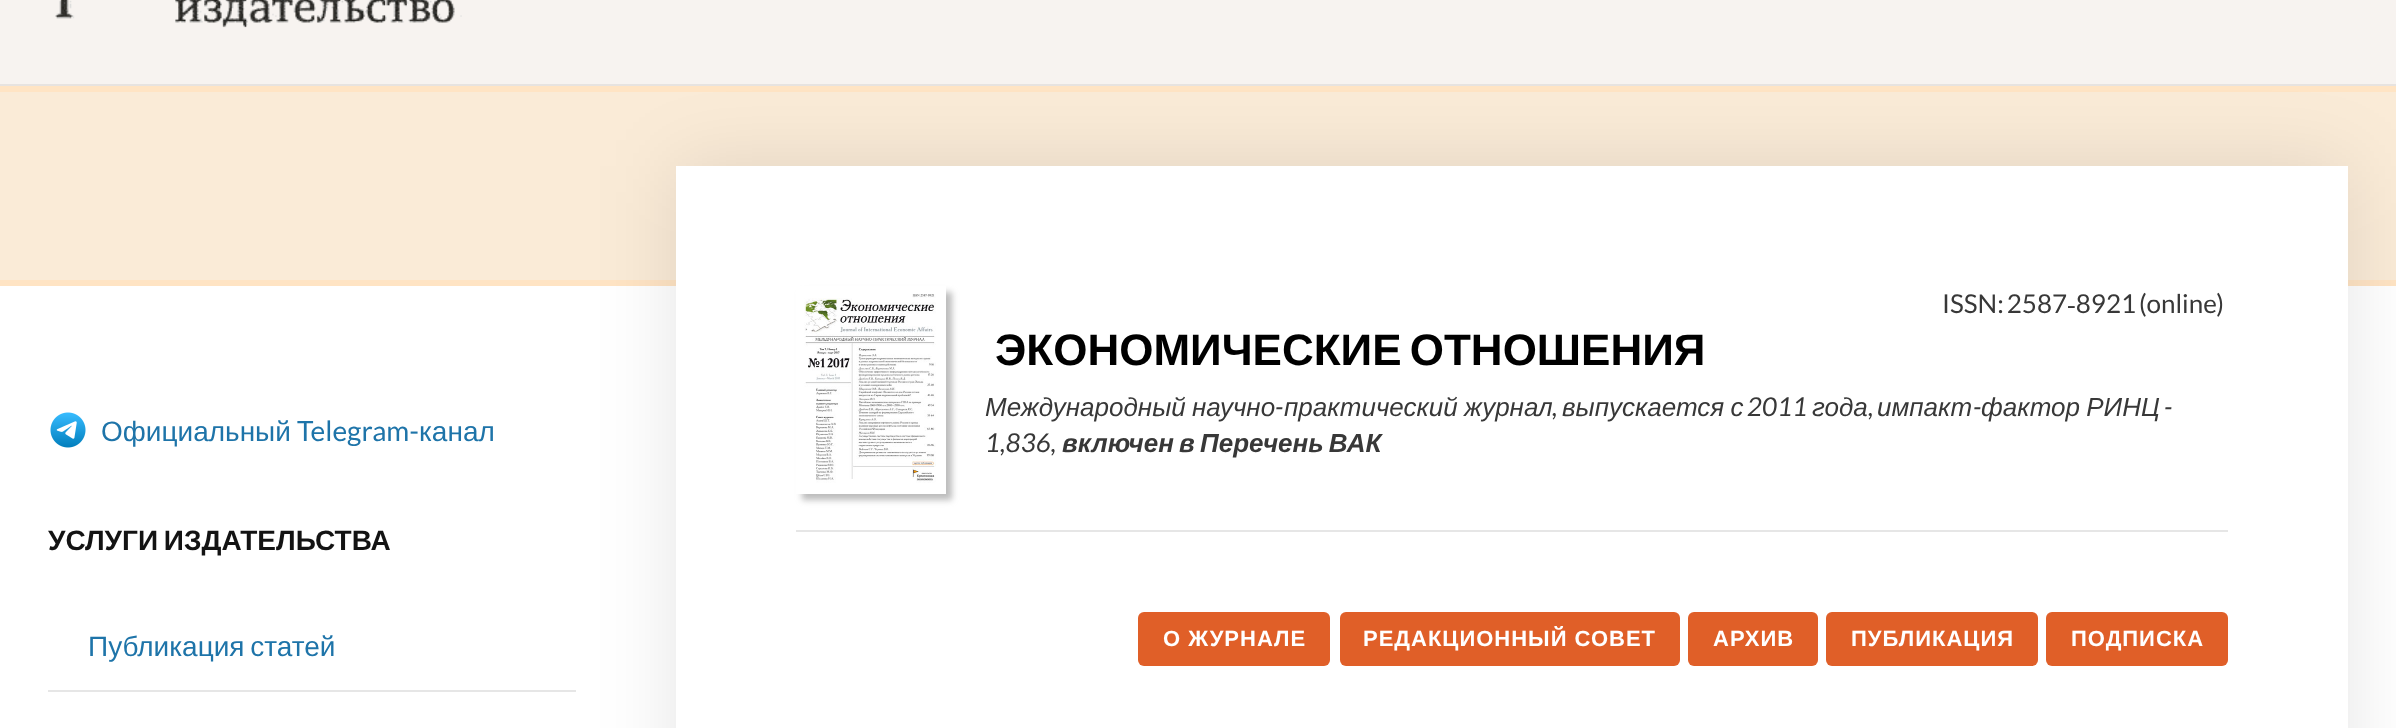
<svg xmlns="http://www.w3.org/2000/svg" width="2396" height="728">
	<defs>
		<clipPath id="clip1"><path d="M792 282H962V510H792ZM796 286H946V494H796Z" clip-rule="evenodd" /></clipPath>
	</defs>
	<rect width="100%" height="100%" fill="#FFFFFF" />
	<rect x="0" y="0" width="2396" height="84" fill="#F7F3F0" />
	<rect x="0" y="84" width="2396" height="2" fill="#E7E3E0" />
	<image x="55" y="0" width="407" height="28" href="assets/img1.png" />
	<rect x="0" y="92" width="2396" height="188" fill="#FAEBD7" />
	<rect x="0" y="86" width="2396" height="6" fill="#FFE4C4" />
	<rect x="0" y="280" width="2396" height="6" fill="#FFE4C4" />
	<image x="50" y="412" width="36" height="36" href="assets/img2.png" />
	<text x="101" y="441" font-family="Liberation Sans" font-size="28" fill="#1E74A9">Официальный</text>
	<text x="297" y="441" font-family="Lato" font-size="28" fill="#1E74A9">Telegram-</text>
	<text x="419" y="441" font-family="Liberation Sans" font-size="28" fill="#1E74A9">канал</text>
	<text x="48" y="550" word-spacing="-2" font-family="Liberation Sans" font-size="28" font-weight="700" fill="#131313">УСЛУГИ ИЗДАТЕЛЬСТВА</text>
	<rect x="48" y="690" width="528" height="2" fill="#E6E6E6" />
	<text x="88" y="656" word-spacing="-2" font-family="Liberation Sans" font-size="28" fill="#1E74A9">Публикация статей</text>
	<rect x="676" y="166" width="1672" height="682" fill="#000000" fill-opacity="0.1" filter="blur(40px)" />
	<rect x="676" y="166" width="1672" height="562" fill="#FFFFFF" />
	<rect x="796" y="530" width="1432" height="2" fill="#E6E6E6" />
	<g clip-path="url(#clip1)">
		<rect x="802" y="292" width="150" height="208" fill="#7A7A7A" fill-opacity="0.5" filter="blur(3px)" />
	</g>
	<image x="804" y="294" width="132" height="189" href="assets/img3.png" />
	<text x="1942" y="313" word-spacing="-2" font-family="Lato" font-size="26" fill="#383838">ISSN: 2587‑8921 (online)</text>
	<text x="995" y="365" word-spacing="-4" font-family="Liberation Sans" font-size="44" font-weight="700" fill="#000000">ЭКОНОМИЧЕСКИЕ ОТНОШЕНИЯ</text>
	<text x="985" y="416" word-spacing="-1" font-family="Liberation Sans" font-size="26" font-style="italic" fill="#383838">Международный научно</text>
	<text x="1275" y="416" font-family="Lato" font-size="26" font-style="italic" fill="#383838">-</text>
	<g font-family="Liberation Sans" font-size="26" font-style="italic" fill="#383838">
		<text x="1284" y="416" word-spacing="-1">практический журнал</text>
		<text x="1562" y="416" word-spacing="-1">выпускается с</text>
	</g>
	<text x="1747" y="416" font-family="Lato" font-size="26" font-style="italic" fill="#383838">2011</text>
	<g font-family="Liberation Sans" font-size="26" font-style="italic" fill="#383838">
		<text x="1812" y="416">года</text>
		<text x="1877" y="416">импакт</text>
	</g>
	<text x="1973" y="416" font-family="Lato" font-size="26" font-style="italic" fill="#383838">-</text>
	<text x="1981" y="416" word-spacing="-1" font-family="Liberation Sans" font-size="26" font-style="italic" fill="#383838">фактор РИНЦ</text>
	<g font-family="Lato" font-size="26" font-style="italic" fill="#383838">
		<text x="2164" y="416">-</text>
		<text x="1552" y="416">,</text>
		<text x="1868" y="416">,</text>
		<text x="985" y="452">1,836,</text>
	</g>
	<text x="1062" y="452" word-spacing="-2" font-family="Liberation Sans" font-size="26" font-weight="700" font-style="italic" fill="#383838">включен в Перечень ВАК</text>
	<rect x="1138" y="612" width="192" height="54" rx="6" fill="#E05F28" />
	<text x="1163" y="646" font-family="Liberation Sans" font-size="22" font-weight="700" letter-spacing="1" fill="#FFFFFF">О ЖУРНАЛЕ</text>
	<rect x="1340" y="612" width="340" height="54" rx="6" fill="#E05F28" />
	<text x="1363" y="646" font-family="Liberation Sans" font-size="22" font-weight="700" letter-spacing="1" fill="#FFFFFF">РЕДАКЦИОННЫЙ СОВЕТ</text>
	<rect x="1688" y="612" width="130" height="54" rx="6" fill="#E05F28" />
	<text x="1713" y="646" font-family="Liberation Sans" font-size="22" font-weight="700" letter-spacing="1" fill="#FFFFFF">АРХИВ</text>
	<rect x="1826" y="612" width="212" height="54" rx="6" fill="#E05F28" />
	<text x="1851" y="646" font-family="Liberation Sans" font-size="22" font-weight="700" letter-spacing="1" fill="#FFFFFF">ПУБЛИКАЦИЯ</text>
	<rect x="2046" y="612" width="182" height="54" rx="6" fill="#E05F28" />
	<text x="2071" y="646" font-family="Liberation Sans" font-size="22" font-weight="700" letter-spacing="1" fill="#FFFFFF">ПОДПИСКА</text>
</svg>
